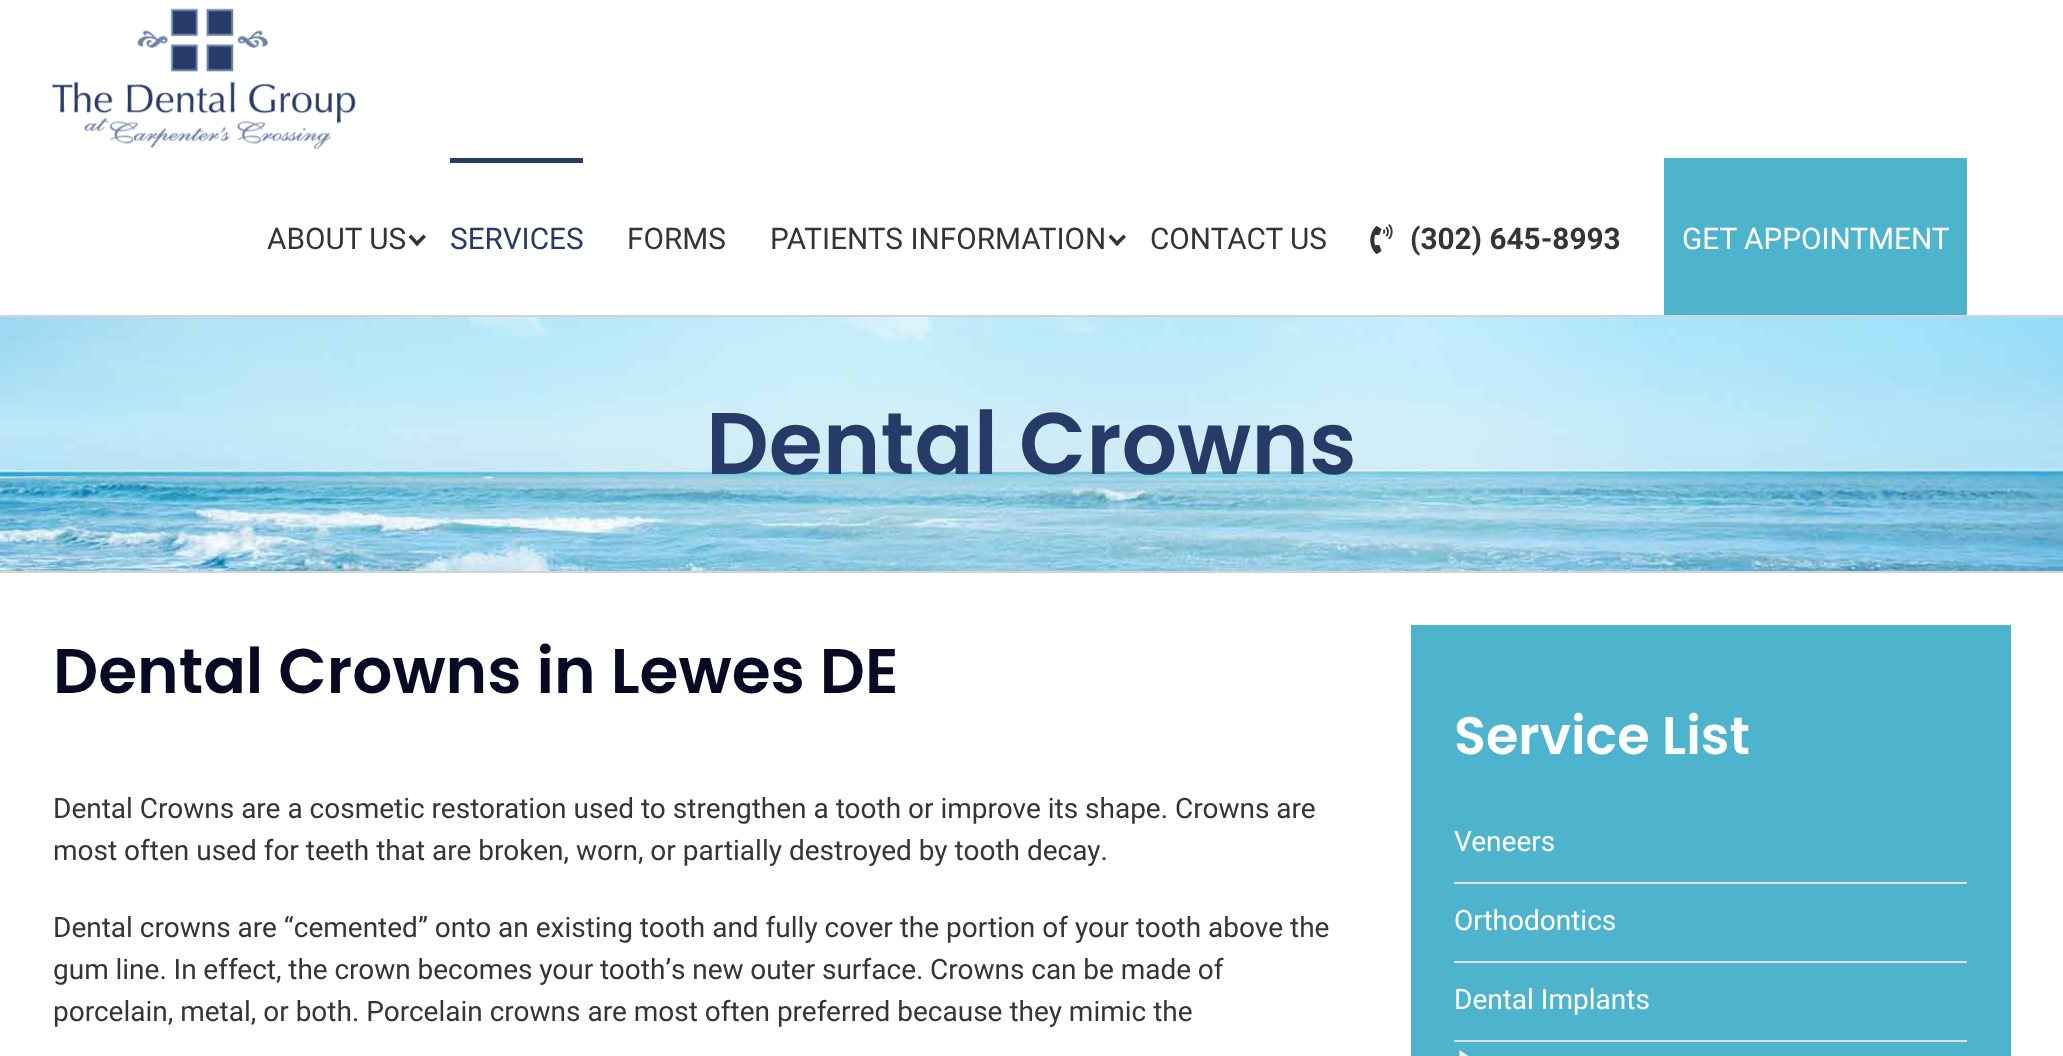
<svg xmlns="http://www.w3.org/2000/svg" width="2063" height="1056">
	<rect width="100%" height="100%" fill="#FFFFFF" />
	<image x="52" y="8" width="304" height="141" href="assets/img1.png" />
	<text x="267" y="249" font-family="Roboto" font-size="29.75" fill="#353535">ABOUT US</text>
	<path d="M426 237L417 246L414.5 243.5L423.5 234.5Z" fill="#333333" />
	<path d="M419.5 243.5L417 246L408.5 237L411 234.5Z" fill="#333333" />
	<rect x="450" y="158" width="133" height="5" fill="#273B68" />
	<text x="450" y="249" font-family="Roboto" font-size="29.75" fill="#273B68">SERVICES</text>
	<g font-family="Roboto" font-size="29.75" fill="#353535">
		<text x="627" y="249">FORMS</text>
		<text x="770" y="249">PATIENTS INFORMATION</text>
	</g>
	<path d="M1126 237L1117 246L1114.5 243.5L1123.5 234.5Z" fill="#333333" />
	<path d="M1119.5 243.5L1117 246L1108.5 237L1111 234.5Z" fill="#333333" />
	<text x="1150" y="249" font-family="Roboto" font-size="29.75" fill="#353535">CONTACT US</text>
	<image x="1370" y="224" width="23" height="30" href="assets/img2.png" />
	<text x="1410" y="249" font-family="Roboto" font-size="29.75" font-weight="700" fill="#353535">(302) 645-8993</text>
	<rect x="1664" y="158" width="303" height="157" fill="#4EB4CD" />
	<text x="1682" y="249" font-family="Roboto" font-size="29.75" fill="#FFFFFF">GET APPOINTMENT</text>
	<image x="0" y="317" width="2063" height="254" href="assets/img3.png" />
	<rect x="0" y="315" width="2063" height="2" fill="#D2D3D4" />
	<rect x="0" y="571" width="2063" height="2" fill="#D2D3D4" />
	<text x="706" y="474" font-family="Poppins" font-size="87.5" font-weight="600" fill="#273B68">Dental Crowns</text>
	<text x="53" y="693" font-family="Poppins" font-size="63" font-weight="600" fill="#070A22">Dental Crowns in Lewes DE</text>
	<g font-family="Roboto" font-size="28" fill="#353535">
		<text x="53" y="818">Dental Crowns are a cosmetic restoration used to strengthen a tooth or improve its shape. Crowns are</text>
		<text x="53" y="860">most often used for teeth that are broken, worn, or partially destroyed by tooth decay.</text>
		<text x="53" y="937">Dental crowns are “cemented” onto an existing tooth and fully cover the portion of your tooth above the</text>
		<text x="53" y="979" word-spacing="-0.2">gum line. In effect, the crown becomes your tooth’s new outer surface. Crowns can be made of</text>
		<text x="53" y="1021">porcelain, metal, or both. Porcelain crowns are most often preferred because they mimic the</text>
	</g>
	<rect x="1411" y="625" width="600" height="431" fill="#4EB4CD" />
	<text x="1454" y="754" font-family="Poppins" font-size="52.5" font-weight="600" fill="#FFFFFF">Service List</text>
	<rect x="1454" y="882" width="513" height="2" fill="#E0DEDE" />
	<text x="1454" y="851" font-family="Roboto" font-size="28" fill="#FFFFFF">Veneers</text>
	<rect x="1454" y="961" width="513" height="2" fill="#E0DEDE" />
	<text x="1454" y="930" font-family="Roboto" font-size="28" fill="#FFFFFF">Orthodontics</text>
	<rect x="1454" y="1040" width="513" height="2" fill="#E0DEDE" />
	<text x="1454" y="1009" font-family="Roboto" font-size="28" fill="#FFFFFF">Dental Implants</text>
	<path d="M1459.5 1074.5V1050L1477 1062Z" fill="#FFFFFF" />
</svg>
